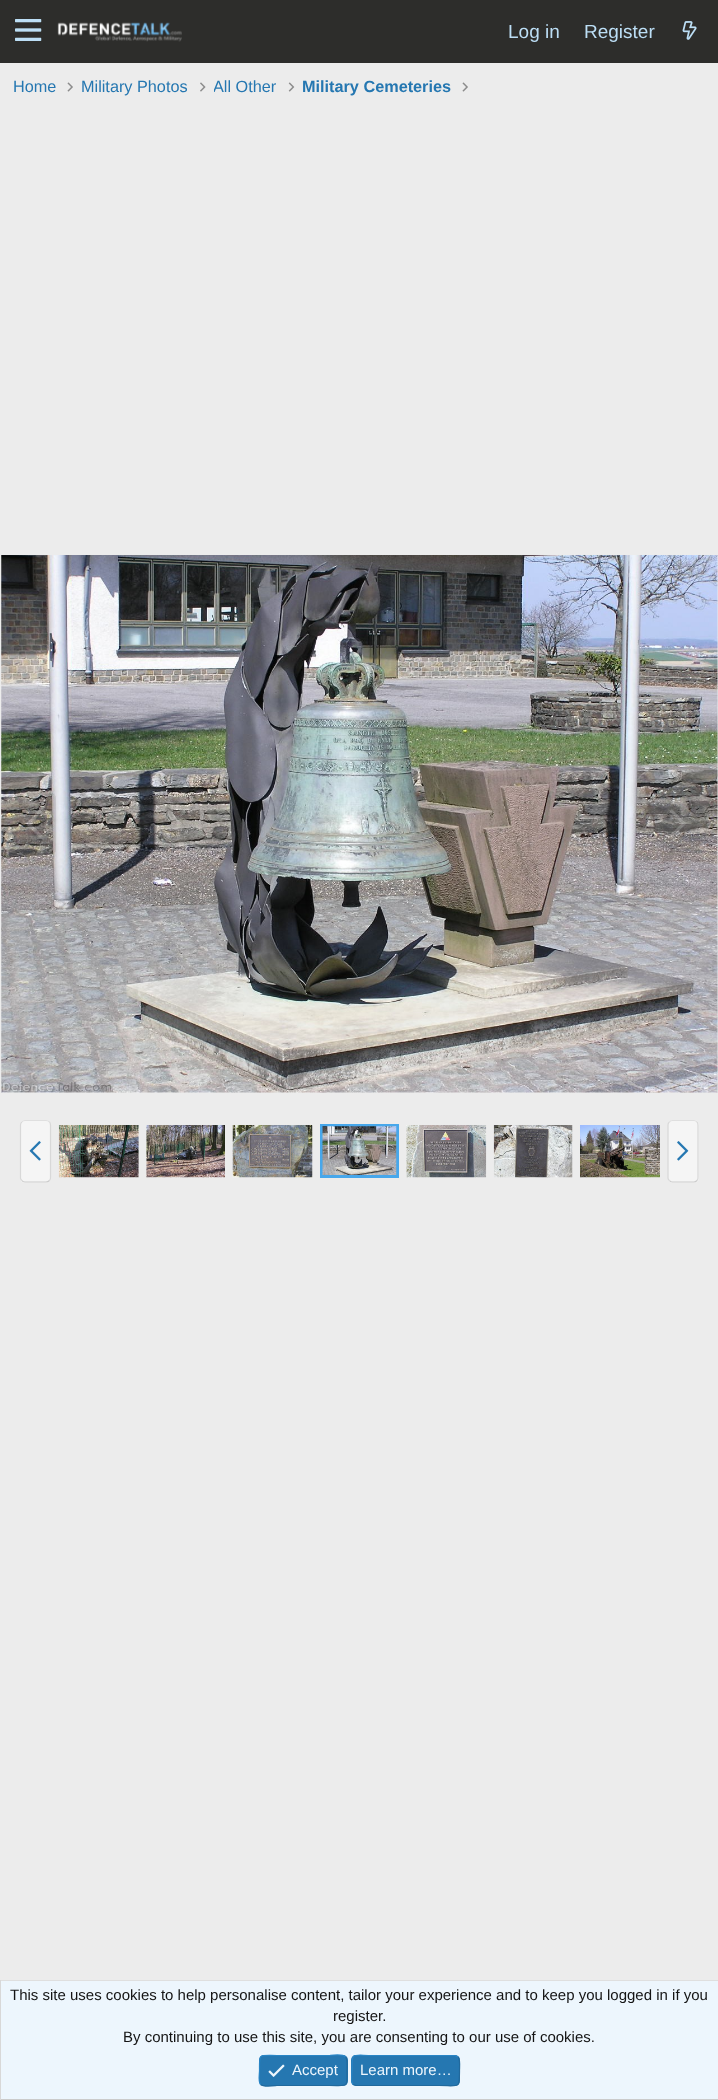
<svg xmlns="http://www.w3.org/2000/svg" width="718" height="2100">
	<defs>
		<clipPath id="clip1"><rect x="214" y="75" width="62" height="24" /></clipPath>
	</defs>
	<rect width="100%" height="100%" fill="#ECECEC" />
	<rect x="0" y="0" width="718" height="63" fill="#2D2D2B" />
	<image x="15" y="19" width="27" height="22" href="assets/img1.png" />
	<image x="57" y="22" width="125" height="20" href="assets/img2.png" />
	<g font-family="Liberation Sans" font-size="19" fill="#BCDEF5">
		<text x="508" y="38">Log in</text>
		<text x="584" y="38">Register</text>
	</g>
	<image x="682" y="21" width="15" height="19" href="assets/img3.png" />
	<text x="13" y="92" font-family="Liberation Sans" font-size="16.25" fill="#2577B1">Home</text>
	<image x="67" y="82" width="6" height="10" href="assets/img4.png" />
	<text x="81" y="92" font-family="Liberation Sans" font-size="16.25" fill="#2577B1">Military Photos</text>
	<image x="200" y="82" width="6" height="10" href="assets/img5.png" />
	<g clip-path="url(#clip1)">
		<text x="213" y="92" font-family="Liberation Sans" font-size="16.25" fill="#2577B1">All Other</text>
	</g>
	<image x="288" y="82" width="7" height="10" href="assets/img6.png" />
	<text x="302" y="92" font-family="Liberation Sans" font-size="16.25" font-weight="700" fill="#2577B1">Military Cemeteries</text>
	<image x="462" y="82" width="6" height="10" href="assets/img4.png" />
	<image x="1" y="555" width="717" height="538" href="assets/img7.png" />
	<rect x="19" y="793" width="37" height="62" rx="5" fill="#505050" fill-opacity="0.14" />
	<image x="26" y="809" width="17" height="29" href="assets/img8.png" />
	<rect x="663" y="793" width="37" height="62" rx="5" fill="#505050" fill-opacity="0.14" />
	<image x="669" y="809" width="17" height="29" href="assets/img9.png" />
	<rect x="20" y="1120" width="31" height="63" rx="5" fill="#F5F5F5" />
	<path d="M22 1122C22.5 1121 24 1120.5 25 1120.5H46C47.5 1120.5 48.5 1121 49.5 1122" fill="none" stroke="#DFDFDF" stroke-width="1.2" />
	<path d="M49.5 1122C50 1122.5 50.5 1124 50.5 1125V1177.5C50.5 1178.5 50 1180 49.5 1180.5" fill="none" stroke="#D8D8D8" stroke-width="1.2" />
	<path d="M49.5 1180.5C48.5 1181.5 47.5 1182 46 1182H25C24 1182 22.5 1181.5 22 1180.5" fill="none" stroke="#CBCBCB" stroke-width="1.2" />
	<path d="M22 1180.5C21 1180 20.5 1178.5 20.5 1177.5V1125C20.5 1124 21 1122.5 22 1122" fill="none" stroke="#D8D8D8" stroke-width="1.2" />
	<image x="29" y="1141" width="12" height="20" href="assets/img10.png" />
	<image x="58" y="1125" width="81" height="53" href="assets/img11.png" />
	<image x="146" y="1125" width="79" height="53" href="assets/img12.png" />
	<image x="232" y="1125" width="81" height="53" href="assets/img13.png" />
	<rect x="321.5" y="1125.5" width="76" height="51" fill="none" stroke="#47A7EB" stroke-width="3" />
	<image x="322" y="1126" width="75" height="49" href="assets/img14.png" />
	<image x="406" y="1125" width="81" height="53" href="assets/img15.png" />
	<image x="493" y="1125" width="80" height="53" href="assets/img16.png" />
	<image x="580" y="1125" width="80" height="53" href="assets/img17.png" />
	<rect x="668" y="1120" width="31" height="63" rx="5" fill="#F5F5F5" />
	<path d="M669.5 1122C670 1121 671.5 1120.5 672.5 1120.5H694C695 1120.5 696 1121 697 1122" fill="none" stroke="#DFDFDF" stroke-width="1.2" />
	<path d="M697 1122C697.5 1122.5 698 1124 698 1125V1177.5C698 1178.5 697.5 1180 697 1180.5" fill="none" stroke="#D8D8D8" stroke-width="1.2" />
	<path d="M697 1180.5C696 1181.5 695 1182 694 1182H672.5C671.5 1182 670 1181.5 669.5 1180.5" fill="none" stroke="#CBCBCB" stroke-width="1.2" />
	<path d="M669.5 1180.5C668.5 1180 668 1178.5 668 1177.5V1125C668 1124 668.5 1122.5 669.5 1122" fill="none" stroke="#D8D8D8" stroke-width="1.2" />
	<image x="677" y="1141" width="12" height="20" href="assets/img18.png" />
	<rect x="1" y="1981" width="717" height="118" fill="#EDF6FD" />
	<rect x="0" y="1980" width="718" height="1" fill="#DFDFDF" />
	<rect x="0" y="2099" width="718" height="1" fill="#CBCBCB" />
	<rect x="0" y="1980" width="1" height="120" fill="#D8D8D8" />
	<g font-family="Liberation Sans" font-size="15" fill="#141414">
		<text x="10" y="2000">This site uses cookies to help personalise content, tailor your experience and to keep you logged in if you</text>
		<text x="333" y="2021">register.</text>
		<text x="123" y="2042">By continuing to use this site, you are consenting to our use of cookies.</text>
	</g>
	<rect x="259" y="2055" width="89" height="31" rx="5" fill="#2577B1" />
	<path d="M345.5 2057C348 2059.5 347 2067.5 347 2070.5C347 2088.5 348.5 2085.5 329.5 2085.5H277C275.5 2085.5 264 2087.5 260.5 2084.5" fill="none" stroke="#21699C" stroke-width="1.2" />
	<path d="M260.5 2084.5C258 2081.5 259.5 2074 259.5 2070.5C259.5 2053 258 2055.5 277 2055.5H329.5C330.5 2055.5 342.5 2053.5 345.5 2057" fill="none" stroke="#2985C6" stroke-width="1.2" />
	<image x="268" y="2064" width="17" height="13" href="assets/img19.png" />
	<text x="292" y="2075" font-family="Liberation Sans" font-size="15" fill="#EDF6FD">Accept</text>
	<rect x="351" y="2055" width="109" height="31" rx="5" fill="#2577B1" />
	<path d="M458 2057C460.5 2059.5 459.5 2067.5 459.5 2070.5C459.5 2089.5 460 2085.5 438.5 2085.5H356L353 2084.5" fill="none" stroke="#21699C" stroke-width="1.2" />
	<path d="M353 2084.5C350.5 2081.5 352 2074 352 2070.5C352 2051.5 351 2055.5 372.5 2055.5H455L458 2057" fill="none" stroke="#2985C6" stroke-width="1.2" />
	<text x="360" y="2075" font-family="Liberation Sans" font-size="15" fill="#EDF6FD">Learn more…</text>
</svg>
